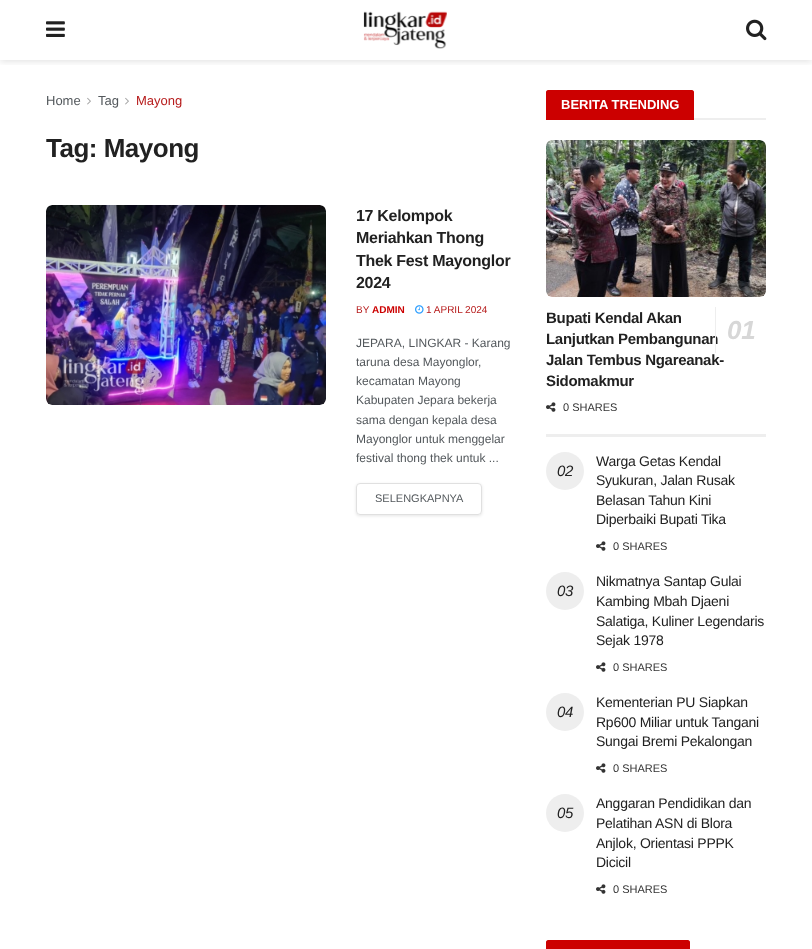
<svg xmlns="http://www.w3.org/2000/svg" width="812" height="949">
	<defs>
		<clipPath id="clip1"><rect x="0" y="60" width="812" height="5" /></clipPath>
		<clipPath id="clip2"><path d="M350 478H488V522H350ZM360 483H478C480 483 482 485 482 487V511C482 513 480 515 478 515H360C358 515 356 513 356 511V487C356 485 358 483 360 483Z" clip-rule="evenodd" /></clipPath>
	</defs>
	<rect width="100%" height="100%" fill="#FFFFFF" />
	<g clip-path="url(#clip1)">
		<rect x="0" y="2" width="812" height="60" fill="#000000" fill-opacity="0.1" filter="blur(3px)" />
	</g>
	<image x="46" y="21" width="19" height="16" href="assets/img1.png" />
	<image x="363" y="11" width="84" height="38" href="assets/img2.png" />
	<image x="746" y="19" width="21" height="22" href="assets/img3.png" />
	<text x="46" y="105" font-family="Liberation Sans" font-size="13" fill="#53585C">Home</text>
	<image x="87" y="97" width="4" height="8" href="assets/img4.png" />
	<text x="98" y="105" font-family="Liberation Sans" font-size="13" fill="#53585C">Tag</text>
	<image x="125" y="97" width="4" height="8" href="assets/img4.png" />
	<text x="136" y="105" font-family="Liberation Sans" font-size="13" fill="#B71C1C">Mayong</text>
	<text x="46" y="157" font-family="Liberation Sans" font-size="26" font-weight="700" letter-spacing="-0.5" fill="#212121">Tag: Mayong</text>
	<rect x="46" y="205" width="280" height="200" rx="6" fill="#F7F7F7" />
	<image x="46" y="205" width="280" height="200" href="assets/img5.png" />
	<g font-family="Liberation Sans" font-size="16" font-weight="700" letter-spacing="-0.3" fill="#212121">
		<text x="356" y="221">17 Kelompok</text>
		<text x="356" y="243">Meriahkan Thong</text>
		<text x="356" y="266">Thek Fest Mayonglor</text>
		<text x="356" y="288">2024</text>
	</g>
	<text x="356" y="313" font-family="Liberation Sans" font-size="10" fill="#B71C1C">BY</text>
	<text x="372" y="313" font-family="Liberation Sans" font-size="10" font-weight="700" fill="#CC0000">ADMIN</text>
	<image x="415" y="305" width="9" height="9" href="assets/img6.png" />
	<text x="426" y="313" font-family="Liberation Sans" font-size="10" fill="#B71C1C">1 APRIL 2024</text>
	<g font-family="Liberation Sans" font-size="12" fill="#53585C">
		<text x="356" y="347">JEPARA, LINGKAR - Karang</text>
		<text x="356" y="366">taruna desa Mayonglor,</text>
		<text x="356" y="385">kecamatan Mayong</text>
		<text x="356" y="404">Kabupaten Jepara bekerja</text>
		<text x="356" y="424">sama dengan kepala desa</text>
		<text x="356" y="443">Mayonglor untuk menggelar</text>
		<text x="356" y="462">festival thong thek untuk ...</text>
	</g>
	<g clip-path="url(#clip2)">
		<rect x="356" y="484" width="126" height="32" rx="4" fill="#000000" fill-opacity="0.1" filter="blur(1.5px)" />
	</g>
	<rect x="356.5" y="483.5" width="125" height="31" rx="3.5" fill="none" stroke="#E0E0E0" />
	<text x="375" y="502" font-family="Liberation Sans" font-size="11" fill="#53585C">SELENGKAPNYA</text>
	<rect x="694" y="118" width="72" height="2" fill="#EEEEEE" />
	<path d="M548 90H692C693 90 694 91 694 92V120H546V92C546 91 547 90 548 90Z" fill="#CC0000" />
	<text x="561" y="109" font-family="Liberation Sans" font-size="13" font-weight="700" fill="#FFFFFF">BERITA TRENDING</text>
	<rect x="546" y="434" width="220" height="3" fill="#EEEEEE" />
	<rect x="546" y="140" width="220" height="157" rx="6" fill="#F7F7F7" />
	<image x="546" y="140" width="220" height="157" href="assets/img7.png" />
	<g font-family="Liberation Sans" font-size="15" font-weight="700" letter-spacing="-0.3" fill="#212121">
		<text x="546" y="323">Bupati Kendal Akan</text>
		<text x="546" y="344">Lanjutkan Pembangunan</text>
	</g>
	<rect x="715" y="307" width="1" height="46" fill="#EEEEEE" />
	<text x="727" y="339" font-family="Liberation Sans" font-size="26" font-weight="700" font-style="italic" letter-spacing="-0.3" fill="#D7D7D7">01</text>
	<g font-family="Liberation Sans" font-size="15" font-weight="700" letter-spacing="-0.3" fill="#212121">
		<text x="546" y="365">Jalan Tembus Ngareanak-</text>
		<text x="546" y="386">Sidomakmur</text>
	</g>
	<image x="546" y="402" width="10" height="10" href="assets/img8.png" />
	<text x="563" y="411" font-family="Liberation Sans" font-size="11" fill="#333333">0 SHARES</text>
	<text x="596" y="466" font-family="Liberation Sans" font-size="14" letter-spacing="-0.25" fill="#212121">Warga Getas Kendal</text>
	<circle cx="565" cy="471" r="19" fill="#EEEEEE" />
	<text x="557" y="476" font-family="Liberation Sans" font-size="15" font-style="italic" letter-spacing="-0.25" fill="#212121">02</text>
	<g font-family="Liberation Sans" font-size="14" letter-spacing="-0.25" fill="#212121">
		<text x="596" y="485">Syukuran, Jalan Rusak</text>
		<text x="596" y="505">Belasan Tahun Kini</text>
		<text x="596" y="524">Diperbaiki Bupati Tika</text>
	</g>
	<image x="596" y="541" width="10" height="10" href="assets/img8.png" />
	<text x="613" y="550" font-family="Liberation Sans" font-size="11" fill="#333333">0 SHARES</text>
	<text x="596" y="586" font-family="Liberation Sans" font-size="14" letter-spacing="-0.25" fill="#212121">Nikmatnya Santap Gulai</text>
	<circle cx="565" cy="591" r="19" fill="#EEEEEE" />
	<text x="557" y="596" font-family="Liberation Sans" font-size="15" font-style="italic" letter-spacing="-0.25" fill="#212121">03</text>
	<g font-family="Liberation Sans" font-size="14" letter-spacing="-0.25" fill="#212121">
		<text x="596" y="606">Kambing Mbah Djaeni</text>
		<text x="596" y="626">Salatiga, Kuliner Legendaris</text>
		<text x="596" y="645">Sejak 1978</text>
	</g>
	<image x="596" y="662" width="10" height="10" href="assets/img8.png" />
	<text x="613" y="671" font-family="Liberation Sans" font-size="11" fill="#333333">0 SHARES</text>
	<text x="596" y="707" font-family="Liberation Sans" font-size="14" letter-spacing="-0.25" fill="#212121">Kementerian PU Siapkan</text>
	<circle cx="565" cy="712" r="19" fill="#EEEEEE" />
	<text x="557" y="717" font-family="Liberation Sans" font-size="15" font-style="italic" letter-spacing="-0.25" fill="#212121">04</text>
	<g font-family="Liberation Sans" font-size="14" letter-spacing="-0.25" fill="#212121">
		<text x="596" y="727">Rp600 Miliar untuk Tangani</text>
		<text x="596" y="746">Sungai Bremi Pekalongan</text>
	</g>
	<image x="596" y="763" width="10" height="10" href="assets/img8.png" />
	<text x="613" y="772" font-family="Liberation Sans" font-size="11" fill="#333333">0 SHARES</text>
	<text x="596" y="808" font-family="Liberation Sans" font-size="14" letter-spacing="-0.25" fill="#212121">Anggaran Pendidikan dan</text>
	<circle cx="565" cy="813" r="19" fill="#EEEEEE" />
	<text x="557" y="818" font-family="Liberation Sans" font-size="15" font-style="italic" letter-spacing="-0.25" fill="#212121">05</text>
	<g font-family="Liberation Sans" font-size="14" letter-spacing="-0.25" fill="#212121">
		<text x="596" y="828">Pelatihan ASN di Blora</text>
		<text x="596" y="848">Anjlok, Orientasi PPPK</text>
		<text x="596" y="867">Dicicil</text>
	</g>
	<image x="596" y="884" width="10" height="10" href="assets/img8.png" />
	<text x="613" y="893" font-family="Liberation Sans" font-size="11" fill="#333333">0 SHARES</text>
	<path d="M548 940H688C689 940 690 941 690 942V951H546V942C546 941 547 940 548 940Z" fill="#CC0000" />
</svg>
